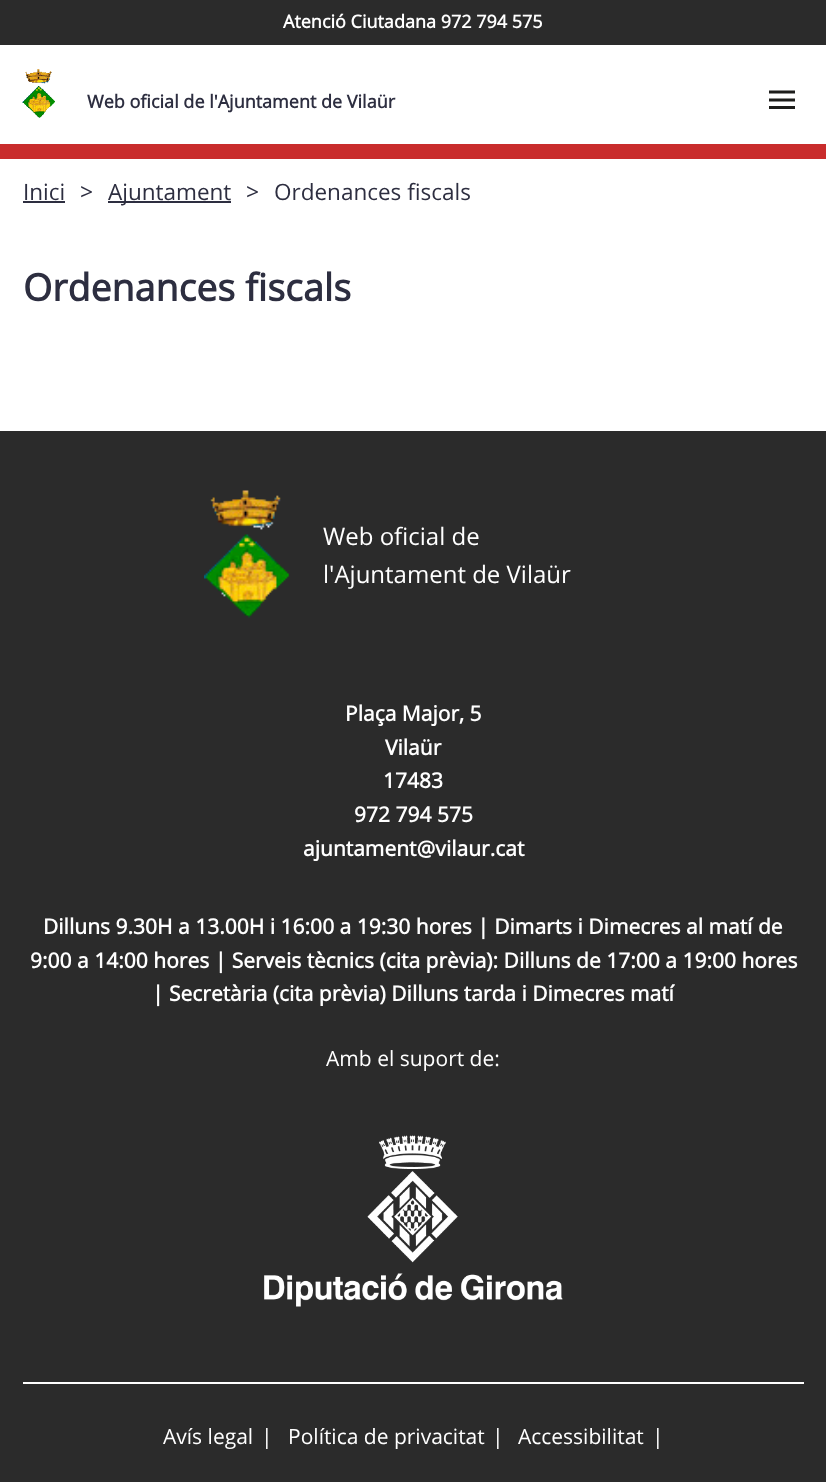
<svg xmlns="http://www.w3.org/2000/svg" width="826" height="1482">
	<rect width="100%" height="100%" fill="#FFFFFF" />
	<rect x="0" y="144" width="826" height="15" fill="#C92C2C" />
	<rect x="0" y="0" width="826" height="45" fill="#2B2B2B" />
	<text x="283" y="28" font-family="Open Sans" font-size="18" font-weight="700" fill="#FFFFFF">Atenció Ciutadana 972 794 575</text>
	<image x="22" y="69" width="33" height="49" href="assets/img1.png" />
	<text x="87" y="108" font-family="Open Sans" font-size="18" font-weight="700" fill="#2D2E40">Web oficial de l'Ajuntament de Vilaür</text>
	<path d="M769 92H795M769 100H795" fill="none" stroke="#1D1D1B" stroke-width="3" />
	<rect x="769" y="106" width="26" height="3" fill="#1D1D1B" />
	<text x="23" y="200" font-family="Open Sans" font-size="22.5" fill="#2D2E40">Inici</text>
	<rect x="23" y="201" width="42" height="2" fill="#2D2E40" />
	<text x="80" y="200" font-family="Open Sans" font-size="23" fill="#2D2E40">&gt;</text>
	<rect x="108" y="201" width="123" height="2" fill="#2D2E40" />
	<text x="108" y="200" font-family="Open Sans" font-size="22.5" fill="#2D2E40">Ajuntament</text>
	<text x="246" y="200" font-family="Open Sans" font-size="23" fill="#2D2E40">&gt;</text>
	<text x="274" y="200" font-family="Open Sans" font-size="22.5" fill="#2D2E40">Ordenances fiscals</text>
	<text x="23" y="301" font-family="Open Sans" font-size="37.5" font-weight="700" fill="#2D2E40">Ordenances fiscals</text>
	<rect x="0" y="431" width="826" height="1051" fill="#2B2B2B" />
	<image x="204" y="490" width="86" height="128" href="assets/img2.png" />
	<g font-family="Open Sans" font-size="24" fill="#FFFFFF">
		<text x="323" y="545">Web oficial de</text>
		<text x="323" y="583">l'Ajuntament de Vilaür</text>
	</g>
	<g font-family="Open Sans" font-size="21" font-weight="700" fill="#FFFFFF">
		<text x="345" y="721">Plaça Major, 5</text>
		<text x="385" y="755">Vilaür</text>
		<text x="383" y="788">17483</text>
		<text x="354" y="822">972 794 575</text>
		<text x="303" y="856">ajuntament@vilaur.cat</text>
		<text x="43" y="934">Dilluns 9.30H a 13.00H i 16:00 a 19:30 hores | Dimarts i Dimecres al matí de</text>
		<text x="30" y="968">9:00 a 14:00 hores | Serveis tècnics (cita prèvia): Dilluns de 17:00 a 19:00 hores</text>
		<text x="152" y="1001">| Secretària (cita prèvia) Dilluns tarda i Dimecres matí</text>
	</g>
	<text x="326" y="1066" font-family="Open Sans" font-size="21" fill="#FFFFFF">Amb el suport de:</text>
	<image x="264" y="1135" width="299" height="172" href="assets/img3.png" />
	<rect x="23" y="1382" width="781" height="2" fill="#FFFFFF" />
	<g font-family="Open Sans" font-size="21" fill="#FFFFFF">
		<text x="163" y="1444">Avís legal</text>
		<text x="261" y="1444">|</text>
		<text x="288" y="1444">Política de privacitat</text>
		<text x="492" y="1444">|</text>
		<text x="518" y="1444">Accessibilitat</text>
		<text x="652" y="1444">|</text>
	</g>
</svg>
